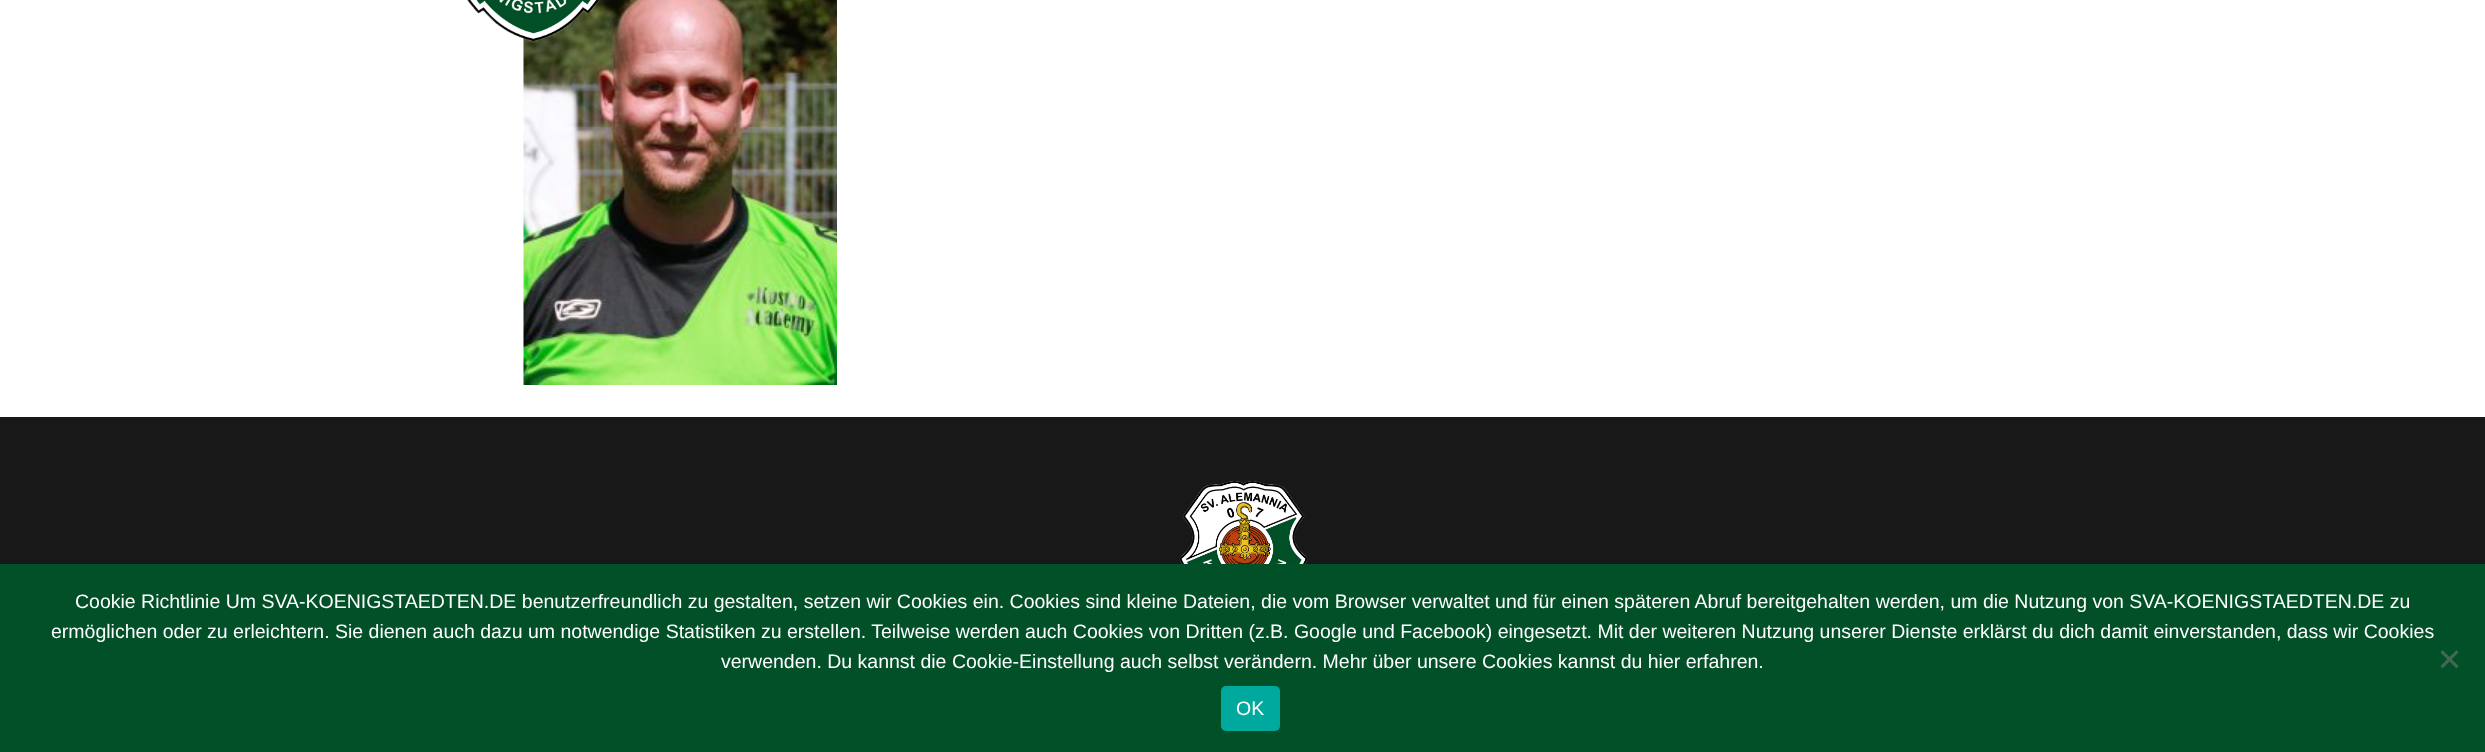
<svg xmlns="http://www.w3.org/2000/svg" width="2485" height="752">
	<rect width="100%" height="100%" fill="#FFFFFF" />
	<image x="523" y="0" width="314" height="385" href="assets/img2.png" />
	<image x="467" y="0" width="133" height="42" href="assets/img1.png" />
	<rect x="0" y="417" width="2485" height="147" fill="#181818" />
	<image x="1179" y="480" width="129" height="84" href="assets/img3.png" />
	<rect x="0" y="564" width="2485" height="188" fill="#025028" />
	<g font-family="Liberation Sans" font-size="19.5" fill="#FFFFFF">
		<text x="75" y="608">Cookie Richtlinie Um SVA-KOENIGSTAEDTEN.DE benutzerfreundlich zu gestalten, setzen wir Cookies ein. Cookies sind kleine Dateien, die vom Browser verwaltet und für einen späteren Abruf bereitgehalten werden, um die Nutzung von SVA-KOENIGSTAEDTEN.DE zu</text>
		<text x="51" y="638">ermöglichen oder zu erleichtern. Sie dienen auch dazu um notwendige Statistiken zu erstellen. Teilweise werden auch Cookies von Dritten (z.B. Google und Facebook) eingesetzt. Mit der weiteren Nutzung unserer Dienste erklärst du dich damit einverstanden, dass wir Cookies</text>
		<text x="721" y="668">verwenden. Du kannst die Cookie-Einstellung auch selbst verändern. Mehr über unsere Cookies kannst du hier erfahren.</text>
	</g>
	<path d="M2456.5 650L2458.5 652.5L2442.5 668.5L2440.5 666Z" fill="#416854" />
	<path d="M2440.5 652.5L2442.5 650L2458.5 666L2456.5 668.5Z" fill="#416854" />
	<rect x="1221" y="686" width="59" height="45" rx="5" fill="#00A99D" />
	<text x="1236" y="715" font-family="Liberation Sans" font-size="19.5" fill="#FFFFFF">OK</text>
</svg>
